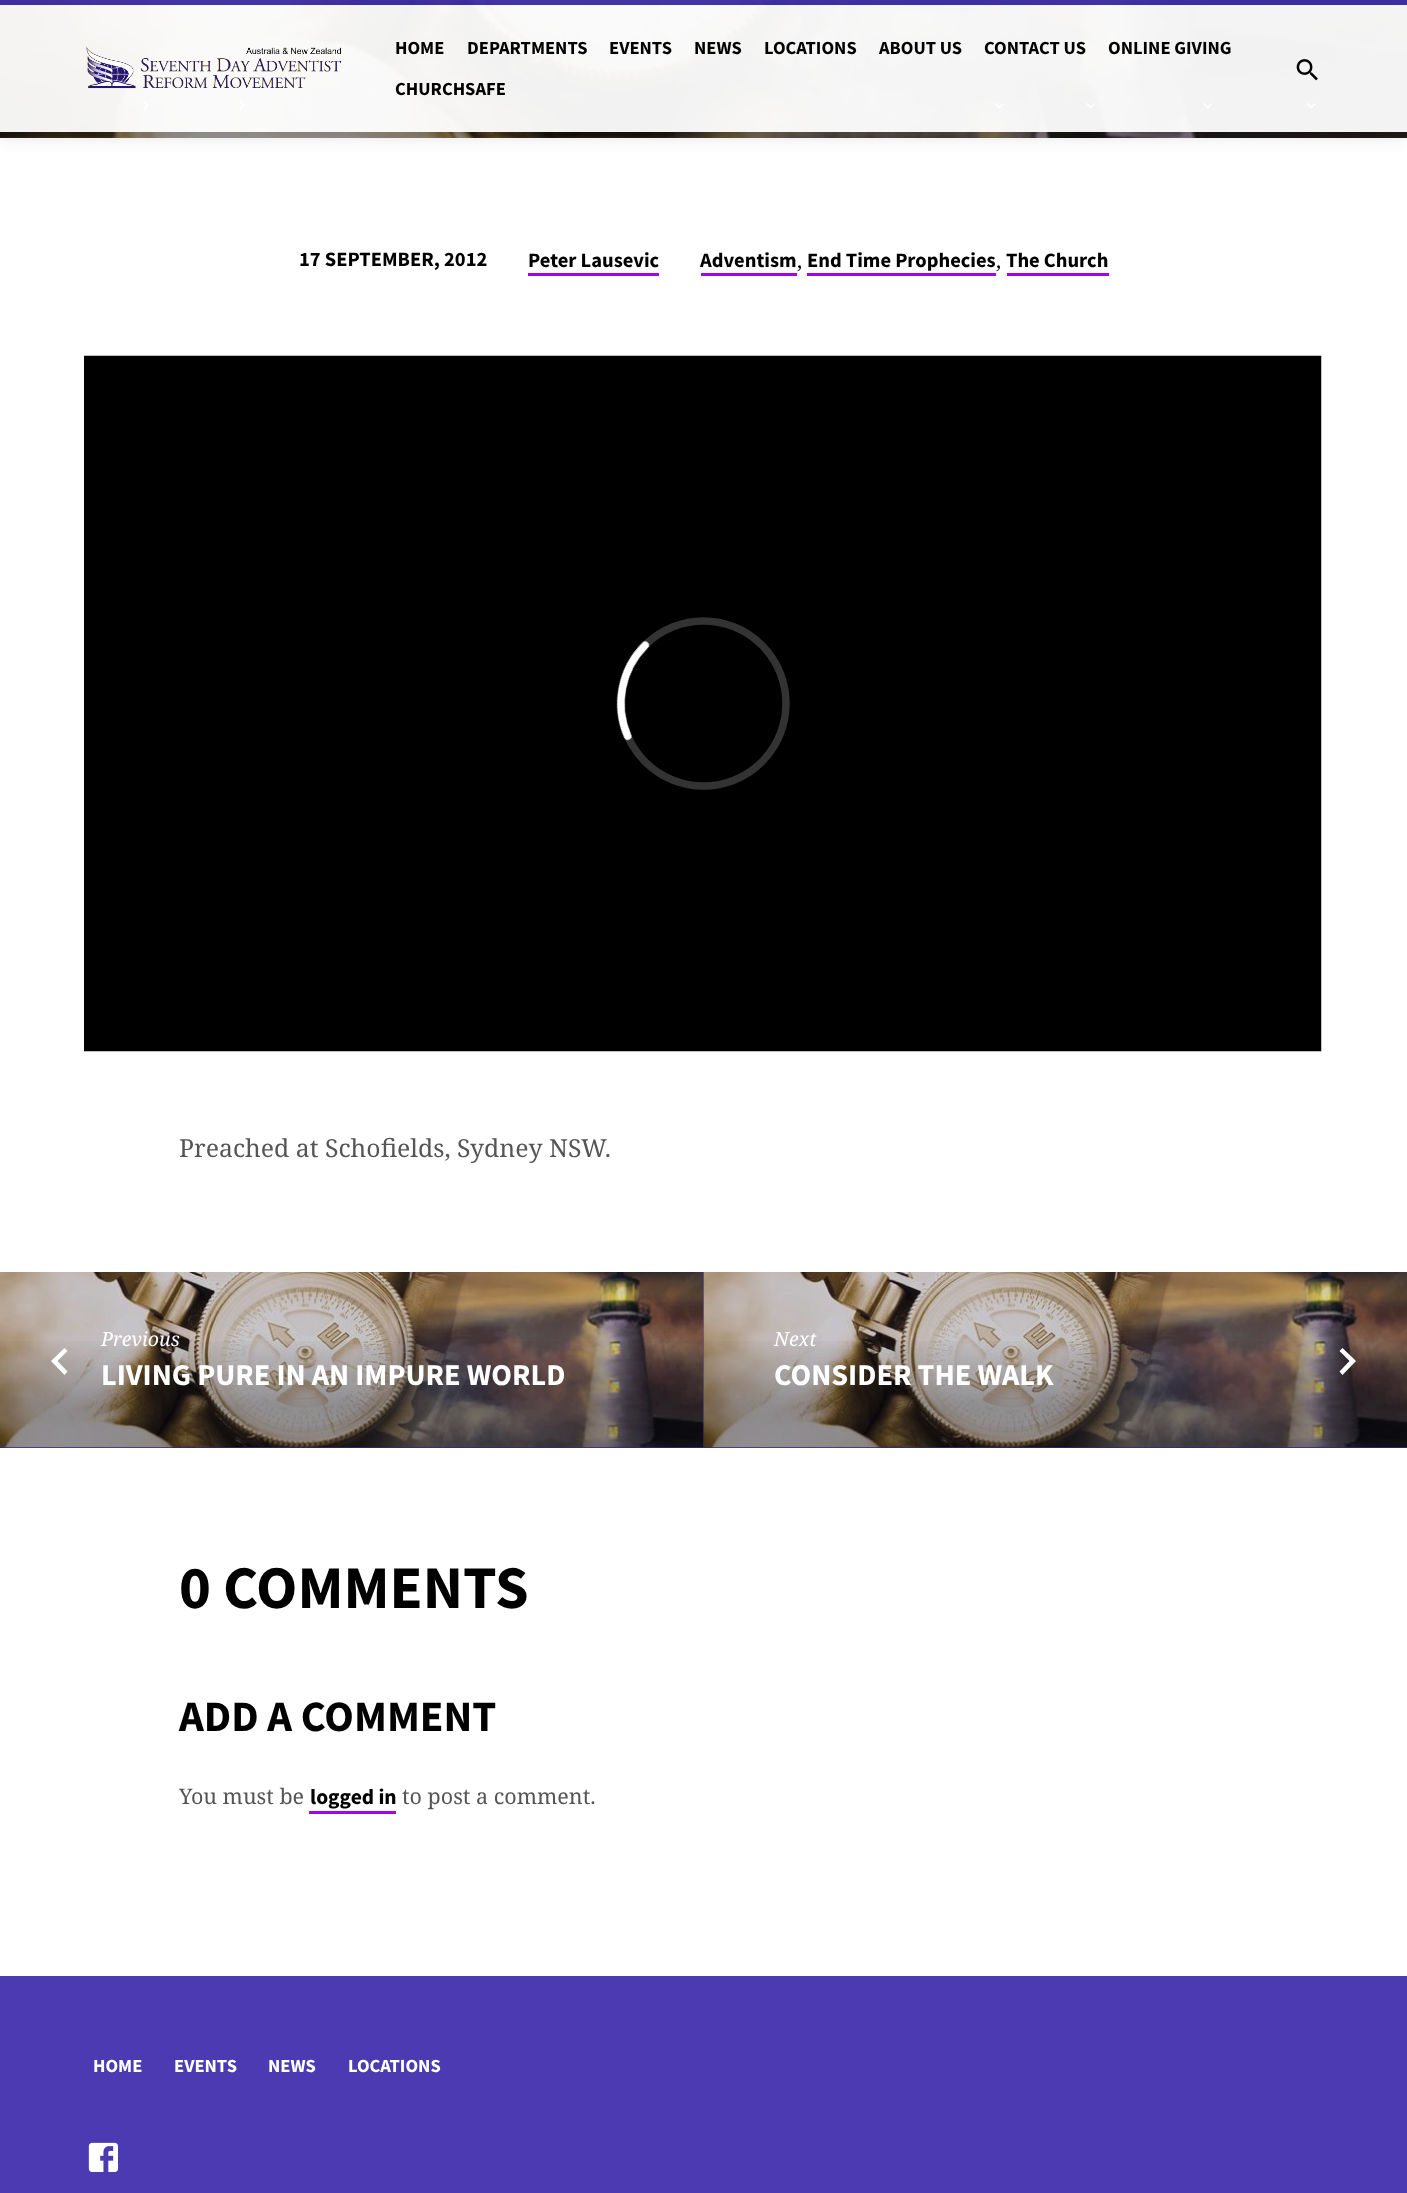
<svg xmlns="http://www.w3.org/2000/svg" width="1407" height="2193">
	<defs>
		<linearGradient id="g1" gradientUnits="userSpaceOnUse" x1="704" y1="-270" x2="704" y2="138"><stop offset="0" stop-color="#000000" stop-opacity="0" /><stop offset="0.36" stop-color="#000000" stop-opacity="0" /><stop offset="0.76" stop-color="#000000" stop-opacity="0.28" /><stop offset="1" stop-color="#000000" stop-opacity="0.28" /></linearGradient>
		<clipPath id="clip1"><path d="M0 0H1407V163H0ZM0 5H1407V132H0Z" clip-rule="evenodd" /></clipPath>
		<linearGradient id="g2" gradientUnits="userSpaceOnUse" x1="354" y1="1272" x2="354" y2="1448"><stop offset="0" stop-color="#060606" stop-opacity="0" /><stop offset="0.36" stop-color="#060606" stop-opacity="0" /><stop offset="0.76" stop-color="#060606" stop-opacity="0.28" /><stop offset="1" stop-color="#060606" stop-opacity="0.28" /></linearGradient>
		<linearGradient id="g3" gradientUnits="userSpaceOnUse" x1="1060" y1="1272" x2="1060" y2="1448"><stop offset="0" stop-color="#060606" stop-opacity="0" /><stop offset="0.36" stop-color="#060606" stop-opacity="0" /><stop offset="0.76" stop-color="#060606" stop-opacity="0.28" /><stop offset="1" stop-color="#060606" stop-opacity="0.28" /></linearGradient>
	</defs>
	<rect width="100%" height="100%" fill="#FFFFFF" />
	<image x="0" y="0" width="1407" height="138" href="assets/img1.png" />
	<rect x="0" y="0" width="1407" height="138" fill="url(#g1)" />
	<image x="143" y="101" width="6" height="10" href="assets/img2.png" />
	<image x="239" y="101" width="6" height="9" href="assets/img3.png" />
	<image x="994" y="103" width="10" height="6" href="assets/img4.png" />
	<image x="1086" y="103" width="10" height="6" href="assets/img5.png" />
	<image x="1203" y="103" width="10" height="6" href="assets/img6.png" />
	<image x="1306" y="103" width="10" height="6" href="assets/img7.png" />
	<rect x="0" y="0" width="1407" height="5" fill="#4130AD" fill-opacity="0.95" />
	<rect x="0" y="5" width="1407" height="127" fill="#FFFFFF" fill-opacity="0.95" />
	<g clip-path="url(#clip1)">
		<rect x="0" y="8" width="1407" height="127" fill="#000000" fill-opacity="0.14" filter="blur(9px)" />
	</g>
	<image x="85" y="45" width="257" height="45" href="assets/img8.png" />
	<g font-family="Source Sans Pro" font-size="18.5" font-weight="700" fill="#000000">
		<text x="395" y="54">HOME</text>
		<text x="467" y="54">DEPARTMENTS</text>
		<text x="609" y="54">EVENTS</text>
		<text x="694" y="54">NEWS</text>
		<text x="764" y="54">LOCATIONS</text>
		<text x="879" y="54">ABOUT US</text>
		<text x="984" y="54">CONTACT US</text>
		<text x="1108" y="54">ONLINE GIVING</text>
		<text x="395" y="95">CHURCHSAFE</text>
	</g>
	<image x="1296" y="59" width="22" height="22" href="assets/img9.png" />
	<g font-family="Source Sans Pro" font-size="20.5" font-weight="700" fill="#000000">
		<text x="299" y="266">17 SEPTEMBER, 2012</text>
		<text x="528" y="267">Peter Lausevic</text>
	</g>
	<rect x="528" y="273" width="131" height="3" fill="#A402EA" />
	<text x="700" y="267" font-family="Source Sans Pro" font-size="20.5" font-weight="700" fill="#000000">Adventism</text>
	<rect x="701" y="273" width="96" height="3" fill="#A402EA" />
	<text x="797" y="268" font-family="Noto Serif" font-size="20.5" fill="#000000">,</text>
	<text x="807" y="267" font-family="Source Sans Pro" font-size="20.5" font-weight="700" fill="#000000">End Time Prophecies</text>
	<rect x="807" y="273" width="189" height="3" fill="#A402EA" />
	<text x="996" y="268" font-family="Noto Serif" font-size="20.5" fill="#000000">,</text>
	<text x="1006" y="267" font-family="Source Sans Pro" font-size="20.5" font-weight="700" fill="#000000">The Church</text>
	<rect x="1007" y="273" width="102" height="3" fill="#A402EA" />
	<image x="84" y="355" width="1238" height="697" href="assets/img10.png" />
	<text x="179" y="1157" font-family="Noto Serif" font-size="24.8" fill="#555555">Preached at Schofields, Sydney NSW.</text>
	<rect x="0" y="1272" width="1407" height="176" fill="#4435A0" />
	<image x="0" y="1272" width="704" height="176" href="assets/img11.png" />
	<rect x="0" y="1341" width="704" height="107" fill="url(#g2)" />
	<path d="M67.5 1371.5L57.5 1361L67.5 1351L64.5 1348L51 1361L64.5 1375Z" fill="#FFFFFF" />
	<text x="101" y="1346" font-family="Noto Serif" font-size="19.5" font-style="italic" fill="#FFFFFF">Previous</text>
	<text x="101" y="1385" font-family="Source Sans Pro" font-size="30.25" font-weight="700" fill="#FFFFFF">LIVING PURE IN AN IMPURE WORLD</text>
	<image x="703" y="1272" width="704" height="176" href="assets/img12.png" />
	<rect x="704" y="1341" width="703" height="107" fill="url(#g3)" />
	<text x="774" y="1346" font-family="Noto Serif" font-size="19.5" font-style="italic" fill="#FFFFFF">Next</text>
	<text x="774" y="1385" font-family="Source Sans Pro" font-size="30.25" font-weight="700" fill="#FFFFFF">CONSIDER THE WALK</text>
	<path d="M1339.5 1371.5L1349.5 1361L1339.5 1351L1342.5 1348L1356 1361L1342.5 1375Z" fill="#FFFFFF" />
	<text x="179" y="1608" font-family="Source Sans Pro" font-size="60.5" font-weight="700" fill="#000000">0 COMMENTS</text>
	<text x="179" y="1731" font-family="Source Sans Pro" font-size="43.25" font-weight="700" fill="#000000">ADD A COMMENT</text>
	<text x="179" y="1804" font-family="Noto Serif" font-size="21.5" fill="#555555">You must be</text>
	<text x="310" y="1804" font-family="Source Sans Pro" font-size="21.5" font-weight="700" fill="#000000">logged in</text>
	<rect x="309" y="1811" width="87" height="3" fill="#A402EA" />
	<text x="402" y="1804" font-family="Noto Serif" font-size="21.5" fill="#555555">to post a comment.</text>
	<rect x="0" y="1976" width="1407" height="217" fill="#4B3AB1" />
	<g font-family="Source Sans Pro" font-size="18.5" font-weight="700" fill="#FFFFFF">
		<text x="93" y="2072">HOME</text>
		<text x="174" y="2072">EVENTS</text>
		<text x="268" y="2072">NEWS</text>
		<text x="348" y="2072">LOCATIONS</text>
	</g>
	<image x="88" y="2142" width="30" height="30" href="assets/img13.png" />
</svg>
